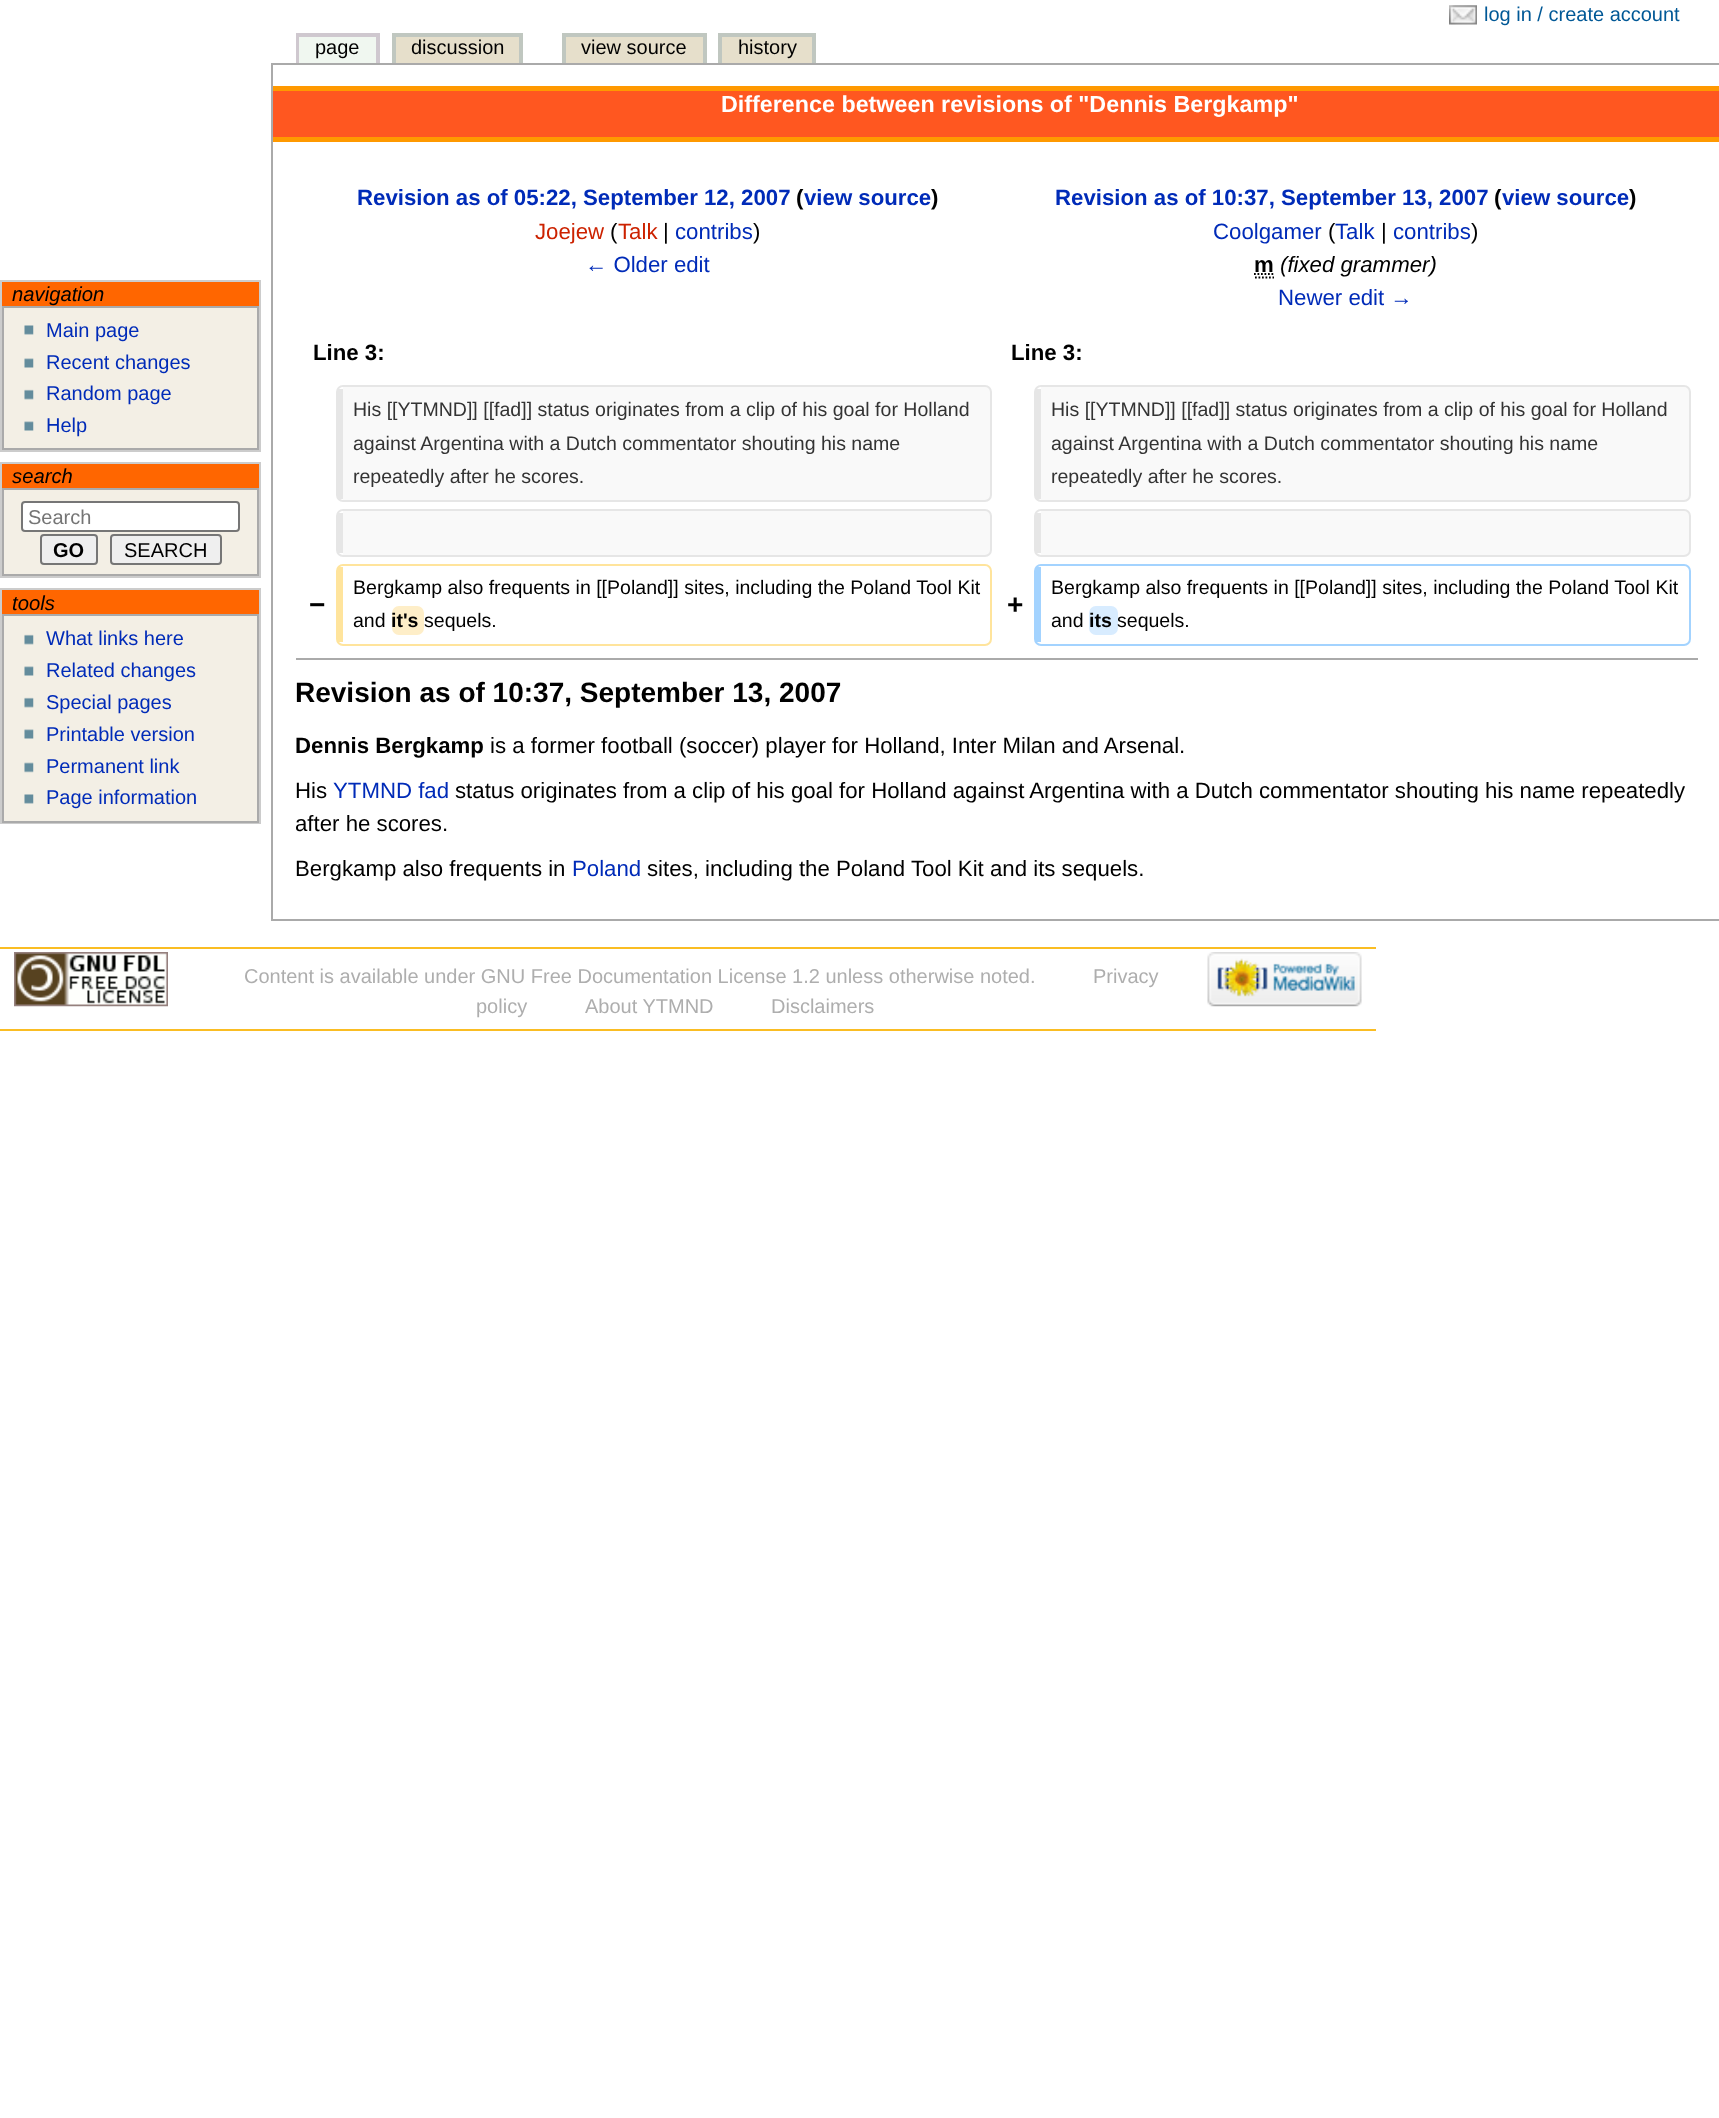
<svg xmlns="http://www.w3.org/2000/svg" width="1719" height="2118">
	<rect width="100%" height="100%" fill="#FFFFFF" />
	<image x="1449" y="5" width="28" height="20" href="assets/img1.png" />
	<text x="1484" y="21" font-family="Liberation Sans" font-size="20" fill="#005896">log in / create account</text>
	<rect x="299" y="37" width="77" height="26" fill="#F0F7F0" />
	<text x="315" y="54" font-family="Liberation Sans" font-size="20" fill="#000000">page</text>
	<rect x="296" y="33" width="84" height="4" fill="#CFC8CF" />
	<path d="M380 33V80L376 79V37Z" fill="#CFC8CF" />
	<path d="M296 80V33L299 37V79Z" fill="#CFC8CF" />
	<rect x="396" y="37" width="123" height="26" fill="#E6DFCB" />
	<rect x="394" y="35" width="127" height="45" fill="none" stroke="#C0C7C0" stroke-width="4" />
	<text x="411" y="54" font-family="Liberation Sans" font-size="20" fill="#000000">discussion</text>
	<rect x="566" y="37" width="137" height="26" fill="#E6DFCB" />
	<rect x="564" y="35" width="141" height="45" fill="none" stroke="#C0C7C0" stroke-width="4" />
	<text x="581" y="54" font-family="Liberation Sans" font-size="20" fill="#000000">view source</text>
	<rect x="722" y="37" width="90" height="26" fill="#E6DFCB" />
	<rect x="720" y="35" width="94" height="45" fill="none" stroke="#C0C7C0" stroke-width="4" />
	<text x="738" y="54" font-family="Liberation Sans" font-size="20" fill="#000000">history</text>
	<rect x="2" y="282" width="257" height="24" fill="#FF6600" />
	<rect x="1" y="281" width="259" height="170" fill="none" stroke="#CCCCCC" stroke-width="2" />
	<text x="12" y="301" font-family="Liberation Sans" font-size="20.25" font-style="italic" fill="#000000">navigation</text>
	<rect x="3" y="307" width="255" height="142" fill="#F3EFE5" stroke="#AAAAAA" stroke-width="2" />
	<image x="24" y="325" width="10" height="10" href="assets/img2.png" />
	<text x="46" y="337" font-family="Liberation Sans" font-size="20" fill="#002BB8">Main page</text>
	<image x="24" y="358" width="10" height="10" href="assets/img3.png" />
	<text x="46" y="369" font-family="Liberation Sans" font-size="20" fill="#002BB8">Recent changes</text>
	<image x="24" y="389" width="10" height="11" href="assets/img4.png" />
	<text x="46" y="400" font-family="Liberation Sans" font-size="20" fill="#002BB8">Random page</text>
	<image x="24" y="421" width="10" height="10" href="assets/img3.png" />
	<text x="46" y="432" font-family="Liberation Sans" font-size="20" fill="#002BB8">Help</text>
	<rect x="2" y="464" width="257" height="24" fill="#FF6600" />
	<rect x="1" y="463" width="259" height="114" fill="none" stroke="#CCCCCC" stroke-width="2" />
	<text x="12" y="483" font-family="Liberation Sans" font-size="20.25" font-style="italic" fill="#000000">search</text>
	<rect x="3" y="489" width="255" height="86" fill="#F3EFE5" stroke="#AAAAAA" stroke-width="2" />
	<rect x="22" y="502" width="217" height="29" rx="3" fill="#FFFFFF" stroke="#767676" stroke-width="2" />
	<text x="28" y="524" font-family="Liberation Sans" font-size="20" fill="#757575">Search</text>
	<rect x="41" y="535" width="56" height="29" rx="3" fill="#EFEFEF" stroke="#767676" stroke-width="2" />
	<text x="53" y="557" font-family="Liberation Sans" font-size="20" font-weight="700" fill="#000000">GO</text>
	<rect x="111" y="535" width="110" height="29" rx="3" fill="#EFEFEF" stroke="#767676" stroke-width="2" />
	<text x="124" y="557" font-family="Liberation Sans" font-size="20" fill="#000000">SEARCH</text>
	<rect x="2" y="590" width="257" height="24" fill="#FF6600" />
	<rect x="1" y="589" width="259" height="234" fill="none" stroke="#CCCCCC" stroke-width="2" />
	<text x="12" y="610" font-family="Liberation Sans" font-size="20.25" font-style="italic" fill="#000000">tools</text>
	<rect x="3" y="615" width="255" height="207" fill="#F3EFE5" stroke="#AAAAAA" stroke-width="2" />
	<image x="24" y="634" width="10" height="11" href="assets/img4.png" />
	<text x="46" y="645" font-family="Liberation Sans" font-size="20" fill="#002BB8">What links here</text>
	<image x="24" y="666" width="10" height="10" href="assets/img3.png" />
	<text x="46" y="677" font-family="Liberation Sans" font-size="20" fill="#002BB8">Related changes</text>
	<image x="24" y="697" width="10" height="11" href="assets/img4.png" />
	<text x="46" y="709" font-family="Liberation Sans" font-size="20" fill="#002BB8">Special pages</text>
	<image x="24" y="729" width="10" height="10" href="assets/img3.png" />
	<text x="46" y="741" font-family="Liberation Sans" font-size="20" fill="#002BB8">Printable version</text>
	<image x="24" y="762" width="10" height="11" href="assets/img5.png" />
	<text x="46" y="773" font-family="Liberation Sans" font-size="20" fill="#002BB8">Permanent link</text>
	<image x="24" y="794" width="10" height="10" href="assets/img2.png" />
	<text x="46" y="804" font-family="Liberation Sans" font-size="20" fill="#002BB8">Page information</text>
	<rect x="296" y="65" width="520" height="17" fill="#FFFFFF" />
	<rect x="271" y="63" width="1448" height="2" fill="#AAAAAA" />
	<rect x="271" y="919" width="1448" height="2" fill="#AAAAAA" />
	<rect x="271" y="63" width="2" height="858" fill="#AAAAAA" />
	<rect x="273" y="91" width="1446" height="46" fill="#FF5720" />
	<rect x="273" y="86" width="1446" height="5" fill="#FF9900" />
	<rect x="273" y="137" width="1446" height="5" fill="#FF9900" />
	<text x="721" y="112" font-family="Liberation Sans" font-size="23.3" font-weight="700" fill="#FFFFFF">Difference between revisions of "Dennis Bergkamp"</text>
	<text x="357" y="205" font-family="Liberation Sans" font-size="22.22" font-weight="700" fill="#002BB8">Revision as of 05:22, September 12, 2007</text>
	<text x="796" y="205" font-family="Liberation Sans" font-size="22.22" font-weight="700" fill="#000000">(</text>
	<text x="804" y="205" font-family="Liberation Sans" font-size="22.22" font-weight="700" fill="#002BB8">view source</text>
	<text x="931" y="205" font-family="Liberation Sans" font-size="22.22" font-weight="700" fill="#000000">)</text>
	<text x="535" y="239" font-family="Liberation Sans" font-size="22.22" fill="#CC2200">Joejew</text>
	<text x="610" y="239" font-family="Liberation Sans" font-size="22.22" fill="#000000">(</text>
	<text x="618" y="239" font-family="Liberation Sans" font-size="22.22" fill="#CC2200">Talk</text>
	<text x="663" y="239" font-family="Liberation Sans" font-size="22.22" fill="#000000">|</text>
	<text x="675" y="239" font-family="Liberation Sans" font-size="22.22" fill="#002BB8">contribs</text>
	<text x="753" y="239" font-family="Liberation Sans" font-size="22.22" fill="#000000">)</text>
	<text x="585" y="272" font-family="Liberation Sans" font-size="22.22" fill="#002BB8">← Older edit</text>
	<text x="1055" y="205" font-family="Liberation Sans" font-size="22.22" font-weight="700" fill="#002BB8">Revision as of 10:37, September 13, 2007</text>
	<text x="1494" y="205" font-family="Liberation Sans" font-size="22.22" font-weight="700" fill="#000000">(</text>
	<text x="1502" y="205" font-family="Liberation Sans" font-size="22.22" font-weight="700" fill="#002BB8">view source</text>
	<text x="1629" y="205" font-family="Liberation Sans" font-size="22.22" font-weight="700" fill="#000000">)</text>
	<text x="1213" y="239" font-family="Liberation Sans" font-size="22.22" fill="#002BB8">Coolgamer</text>
	<text x="1328" y="239" font-family="Liberation Sans" font-size="22.22" fill="#000000">(</text>
	<text x="1335" y="239" font-family="Liberation Sans" font-size="22.22" fill="#002BB8">Talk</text>
	<text x="1381" y="239" font-family="Liberation Sans" font-size="22.22" fill="#000000">|</text>
	<text x="1393" y="239" font-family="Liberation Sans" font-size="22.22" fill="#002BB8">contribs</text>
	<text x="1471" y="239" font-family="Liberation Sans" font-size="22.22" fill="#000000">)</text>
	<text x="1254" y="272" font-family="Liberation Sans" font-size="22.22" font-weight="700" fill="#000000">m</text>
	<path d="M1255 277.5H1274M1254 274H1274" fill="none" stroke="#000000" stroke-width="1.8" stroke-dasharray="1.75 1.75" />
	<text x="1280" y="272" font-family="Liberation Sans" font-size="22.22" font-style="italic" fill="#000000">(fixed grammer)</text>
	<text x="1278" y="305" font-family="Liberation Sans" font-size="22.22" fill="#002BB8">Newer edit →</text>
	<g font-family="Liberation Sans" font-size="22.22" font-weight="700" fill="#000000">
		<text x="313" y="360">Line 3:</text>
		<text x="1011" y="360">Line 3:</text>
	</g>
	<path d="M343 387H986C988 387 990 389 990 391V496C990 498 988 500 986 500H343Z" fill="#F9F9F9" />
	<rect x="337" y="386" width="654" height="115" rx="6" fill="none" stroke="#E6E6E6" stroke-width="2" />
	<rect x="338" y="389" width="5" height="110" fill="#E6E6E6" />
	<g font-family="Liberation Sans" font-size="19.55" fill="#333333">
		<text x="353" y="416">His [[YTMND]] [[fad]] status originates from a clip of his goal for Holland</text>
		<text x="353" y="450">against Argentina with a Dutch commentator shouting his name</text>
		<text x="353" y="483">repeatedly after he scores.</text>
	</g>
	<path d="M1041 387H1684C1687 387 1689 389 1689 391V496C1689 498 1687 500 1684 500H1041Z" fill="#F9F9F9" />
	<rect x="1035" y="386" width="655" height="115" rx="6" fill="none" stroke="#E6E6E6" stroke-width="2" />
	<rect x="1036" y="389" width="5" height="110" fill="#E6E6E6" />
	<g font-family="Liberation Sans" font-size="19.55" fill="#333333">
		<text x="1051" y="416">His [[YTMND]] [[fad]] status originates from a clip of his goal for Holland</text>
		<text x="1051" y="450">against Argentina with a Dutch commentator shouting his name</text>
		<text x="1051" y="483">repeatedly after he scores.</text>
	</g>
	<path d="M343 511H986C988 511 990 513 990 516V550C990 553 988 555 986 555H343Z" fill="#F9F9F9" />
	<rect x="337" y="510" width="654" height="46" rx="6" fill="none" stroke="#E6E6E6" stroke-width="2" />
	<rect x="338" y="513" width="5" height="40" fill="#E6E6E6" />
	<path d="M1041 511H1684C1687 511 1689 513 1689 516V550C1689 553 1687 555 1684 555H1041Z" fill="#F9F9F9" />
	<rect x="1035" y="510" width="655" height="46" rx="6" fill="none" stroke="#E6E6E6" stroke-width="2" />
	<rect x="1036" y="513" width="5" height="40" fill="#E6E6E6" />
	<text x="309" y="614" font-family="Liberation Sans" font-size="28" font-weight="700" fill="#000000">−</text>
	<rect x="337" y="565" width="654" height="80" rx="6" fill="none" stroke="#FFE49C" stroke-width="2" />
	<rect x="338" y="567" width="5" height="75" fill="#FFE49C" />
	<g font-family="Liberation Sans" font-size="19.55" fill="#000000">
		<text x="353" y="594">Bergkamp also frequents in [[Poland]] sites, including the Poland Tool Kit</text>
		<text x="353" y="627">and</text>
	</g>
	<rect x="392" y="606" width="32" height="29" rx="7" fill="#FEEEC8" />
	<text x="391" y="627" font-family="Liberation Sans" font-size="19.55" font-weight="700" fill="#000000">it's</text>
	<text x="424" y="627" font-family="Liberation Sans" font-size="19.55" fill="#000000">sequels.</text>
	<text x="1007" y="614" font-family="Liberation Sans" font-size="28" font-weight="700" fill="#000000">+</text>
	<rect x="1035" y="565" width="655" height="80" rx="6" fill="none" stroke="#A3D3FF" stroke-width="2" />
	<rect x="1036" y="567" width="5" height="75" fill="#A3D3FF" />
	<g font-family="Liberation Sans" font-size="19.55" fill="#000000">
		<text x="1051" y="594">Bergkamp also frequents in [[Poland]] sites, including the Poland Tool Kit</text>
		<text x="1051" y="627">and</text>
	</g>
	<rect x="1089" y="606" width="29" height="29" rx="7" fill="#D8ECFF" />
	<text x="1089" y="627" font-family="Liberation Sans" font-size="19.55" font-weight="700" fill="#000000">its</text>
	<text x="1117" y="627" font-family="Liberation Sans" font-size="19.55" fill="#000000">sequels.</text>
	<rect x="296" y="658" width="1402" height="2" fill="#AAAAAA" />
	<text x="295" y="702" font-family="Liberation Sans" font-size="28" font-weight="700" fill="#000000">Revision as of 10:37, September 13, 2007</text>
	<text x="295" y="753" font-family="Liberation Sans" font-size="22.22" font-weight="700" fill="#000000">Dennis Bergkamp</text>
	<g font-family="Liberation Sans" font-size="22.22" fill="#000000">
		<text x="490" y="753">is a former football (soccer) player for Holland, Inter Milan and Arsenal.</text>
		<text x="295" y="798">His</text>
	</g>
	<text x="333" y="798" font-family="Liberation Sans" font-size="22.22" fill="#002BB8">YTMND fad</text>
	<g font-family="Liberation Sans" font-size="22.22" fill="#000000">
		<text x="455" y="798">status originates from a clip of his goal for Holland against Argentina with a Dutch commentator shouting his name repeatedly</text>
		<text x="295" y="831">after he scores.</text>
		<text x="295" y="876">Bergkamp also frequents in</text>
	</g>
	<text x="572" y="876" font-family="Liberation Sans" font-size="22.22" fill="#002BB8">Poland</text>
	<text x="647" y="876" font-family="Liberation Sans" font-size="22.22" fill="#000000">sites, including the Poland Tool Kit and its sequels.</text>
	<rect x="0" y="947" width="1376" height="2" fill="#FABD23" />
	<rect x="0" y="1029" width="1376" height="2" fill="#FABD23" />
	<image x="14" y="952" width="154" height="55" href="assets/img6.png" />
	<g font-family="Liberation Sans" font-size="20" fill="#AEAEAE">
		<text x="244" y="983">Content is available under GNU Free Documentation License 1.2 unless otherwise noted.</text>
		<text x="1093" y="983">Privacy</text>
		<text x="476" y="1013">policy</text>
		<text x="585" y="1013">About YTMND</text>
		<text x="771" y="1013">Disclaimers</text>
	</g>
	<image x="1207" y="952" width="155" height="55" href="assets/img7.png" />
</svg>
